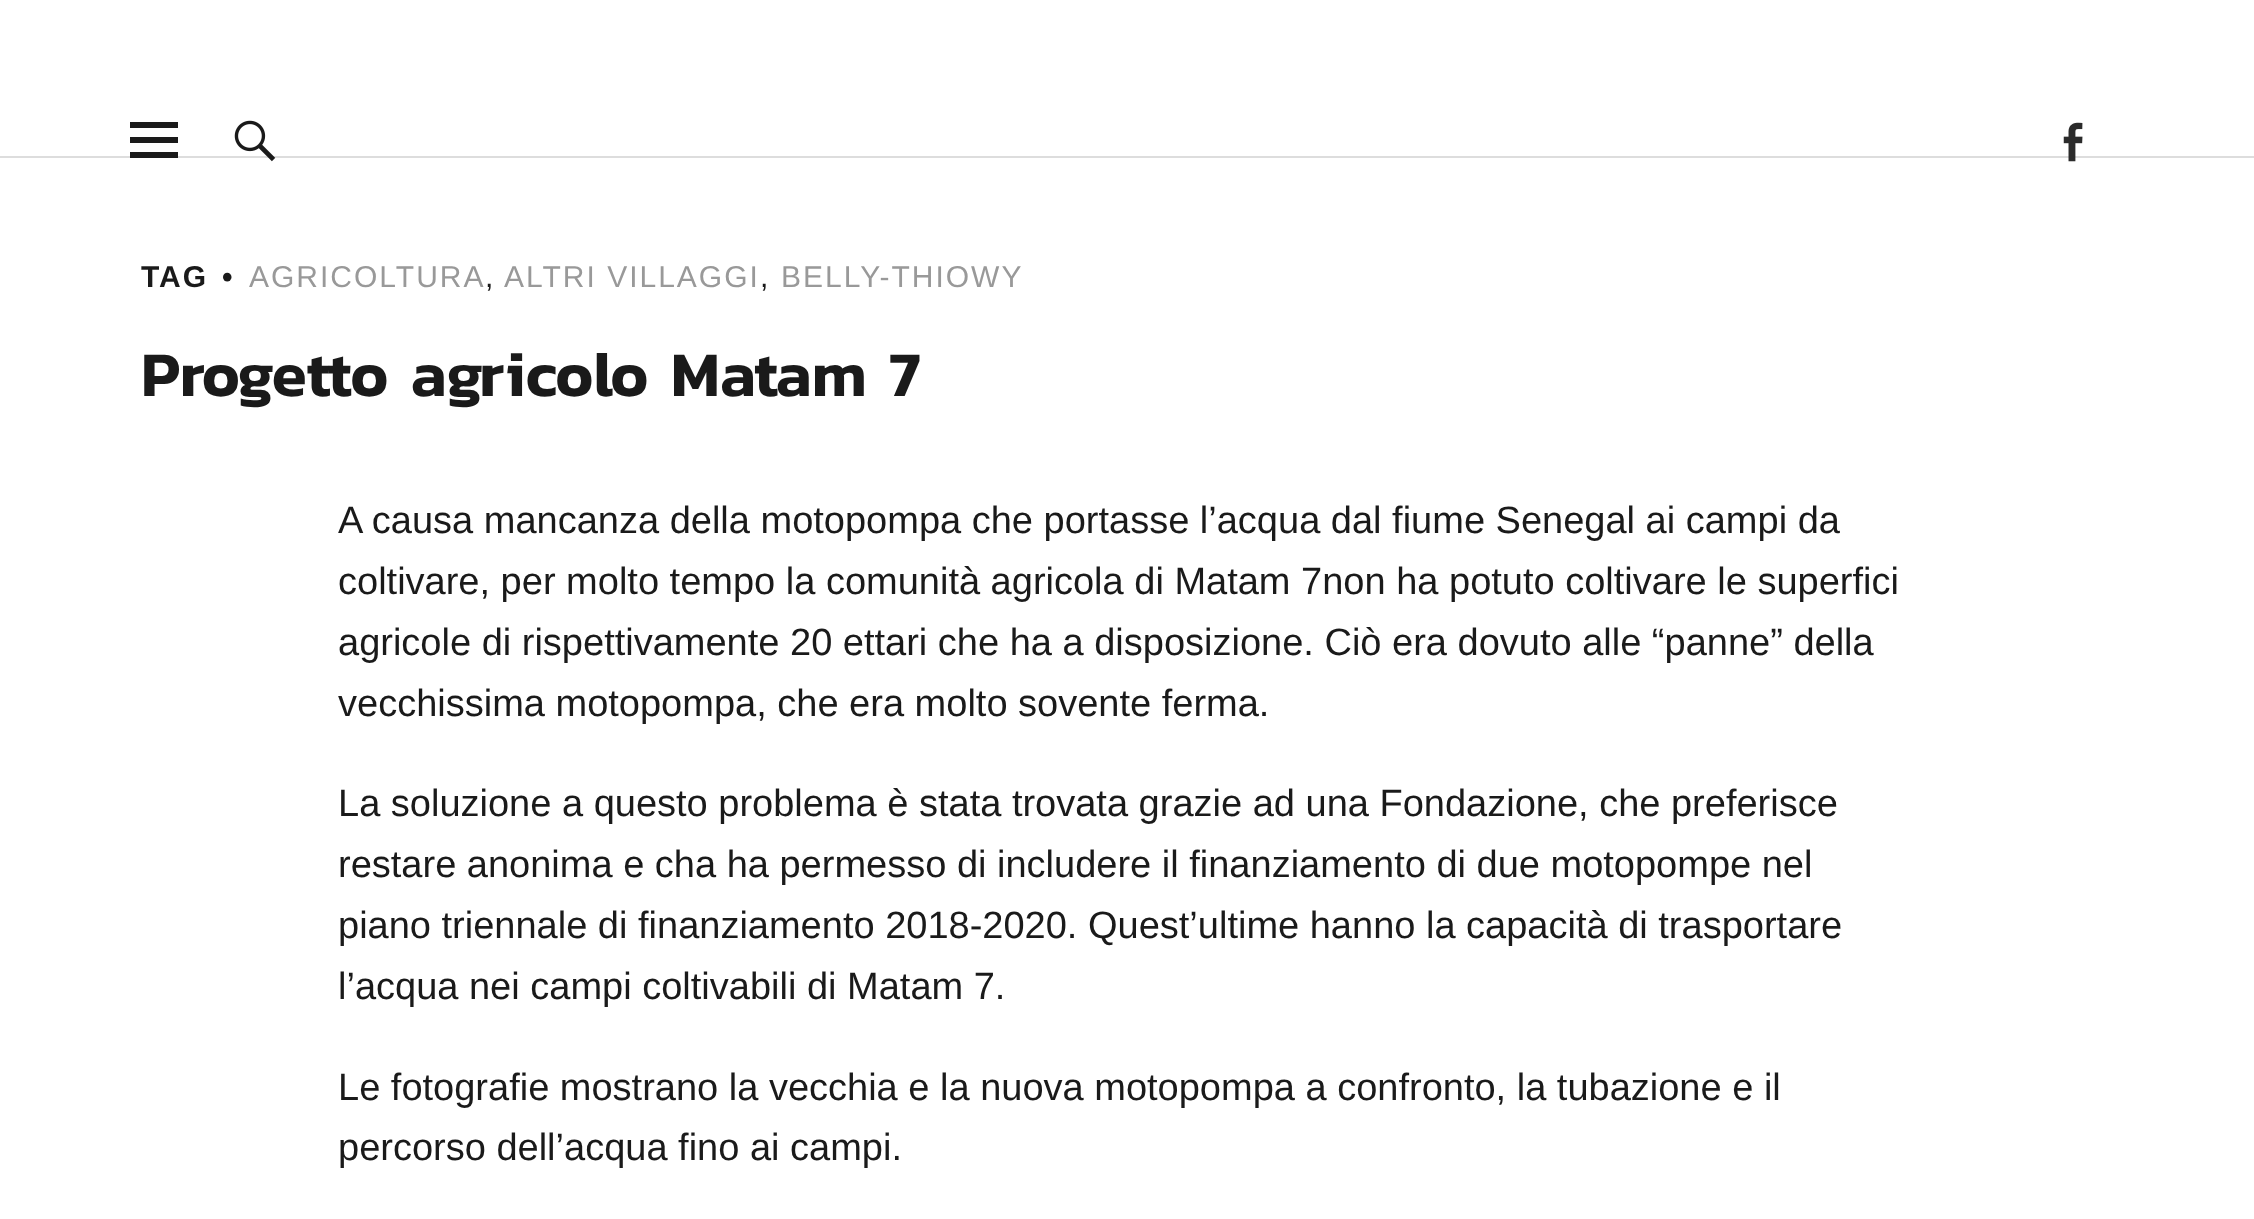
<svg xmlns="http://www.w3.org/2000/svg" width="2254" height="1219">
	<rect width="100%" height="100%" fill="#FFFFFF" />
	<rect x="0" y="156" width="2254" height="2" fill="#DDDDDD" />
	<image x="234" y="120" width="42" height="42" href="assets/img1.png" />
	<path d="M130 158V152H178V158ZM130 122H178V128H130ZM130 143V137H178V143Z" fill="#1A1A1A" />
	<image x="2063" y="122" width="20" height="40" href="assets/img2.png" />
	<g font-family="Liberation Sans" font-size="30" font-weight="700" letter-spacing="2" fill="#1A1A1A">
		<text x="141" y="287">TAG</text>
		<text x="222" y="287">•</text>
	</g>
	<g font-family="Liberation Sans" font-size="30" letter-spacing="2" fill="#999999">
		<text x="249" y="287">AGRICOLTURA</text>
		<text x="504" y="287">ALTRI VILLAGGI</text>
		<text x="781" y="287">BELLY-THIOWY</text>
	</g>
	<g font-family="Liberation Sans" font-size="30" letter-spacing="2" fill="#1A1A1A">
		<text x="485" y="287">,</text>
		<text x="760" y="287">,</text>
	</g>
	<text x="141" y="396" font-family="Kanit" font-size="64" font-weight="600" fill="#1A1A1A">Progetto agricolo Matam 7</text>
	<g font-family="Liberation Sans" font-size="38" fill="#1A1A1A">
		<text x="338" y="533">A causa mancanza della motopompa che portasse l’acqua dal fiume Senegal ai campi da</text>
		<text x="338" y="594">coltivare, per molto tempo la comunità agricola di Matam 7non ha potuto coltivare le superfici</text>
		<text x="338" y="655">agricole di rispettivamente 20 ettari che ha a disposizione. Ciò era dovuto alle “panne” della</text>
		<text x="338" y="716">vecchissima motopompa, che era molto sovente ferma.</text>
		<text x="338" y="816">La soluzione a questo problema è stata trovata grazie ad una Fondazione, che preferisce</text>
		<text x="338" y="877">restare anonima e cha ha permesso di includere il finanziamento di due motopompe nel</text>
		<text x="338" y="938">piano triennale di finanziamento 2018-2020. Quest’ultime hanno la capacità di trasportare</text>
		<text x="338" y="999">l’acqua nei campi coltivabili di Matam 7.</text>
		<text x="338" y="1100">Le fotografie mostrano la vecchia e la nuova motopompa a confronto, la tubazione e il</text>
		<text x="338" y="1160">percorso dell’acqua fino ai campi.</text>
	</g>
</svg>
